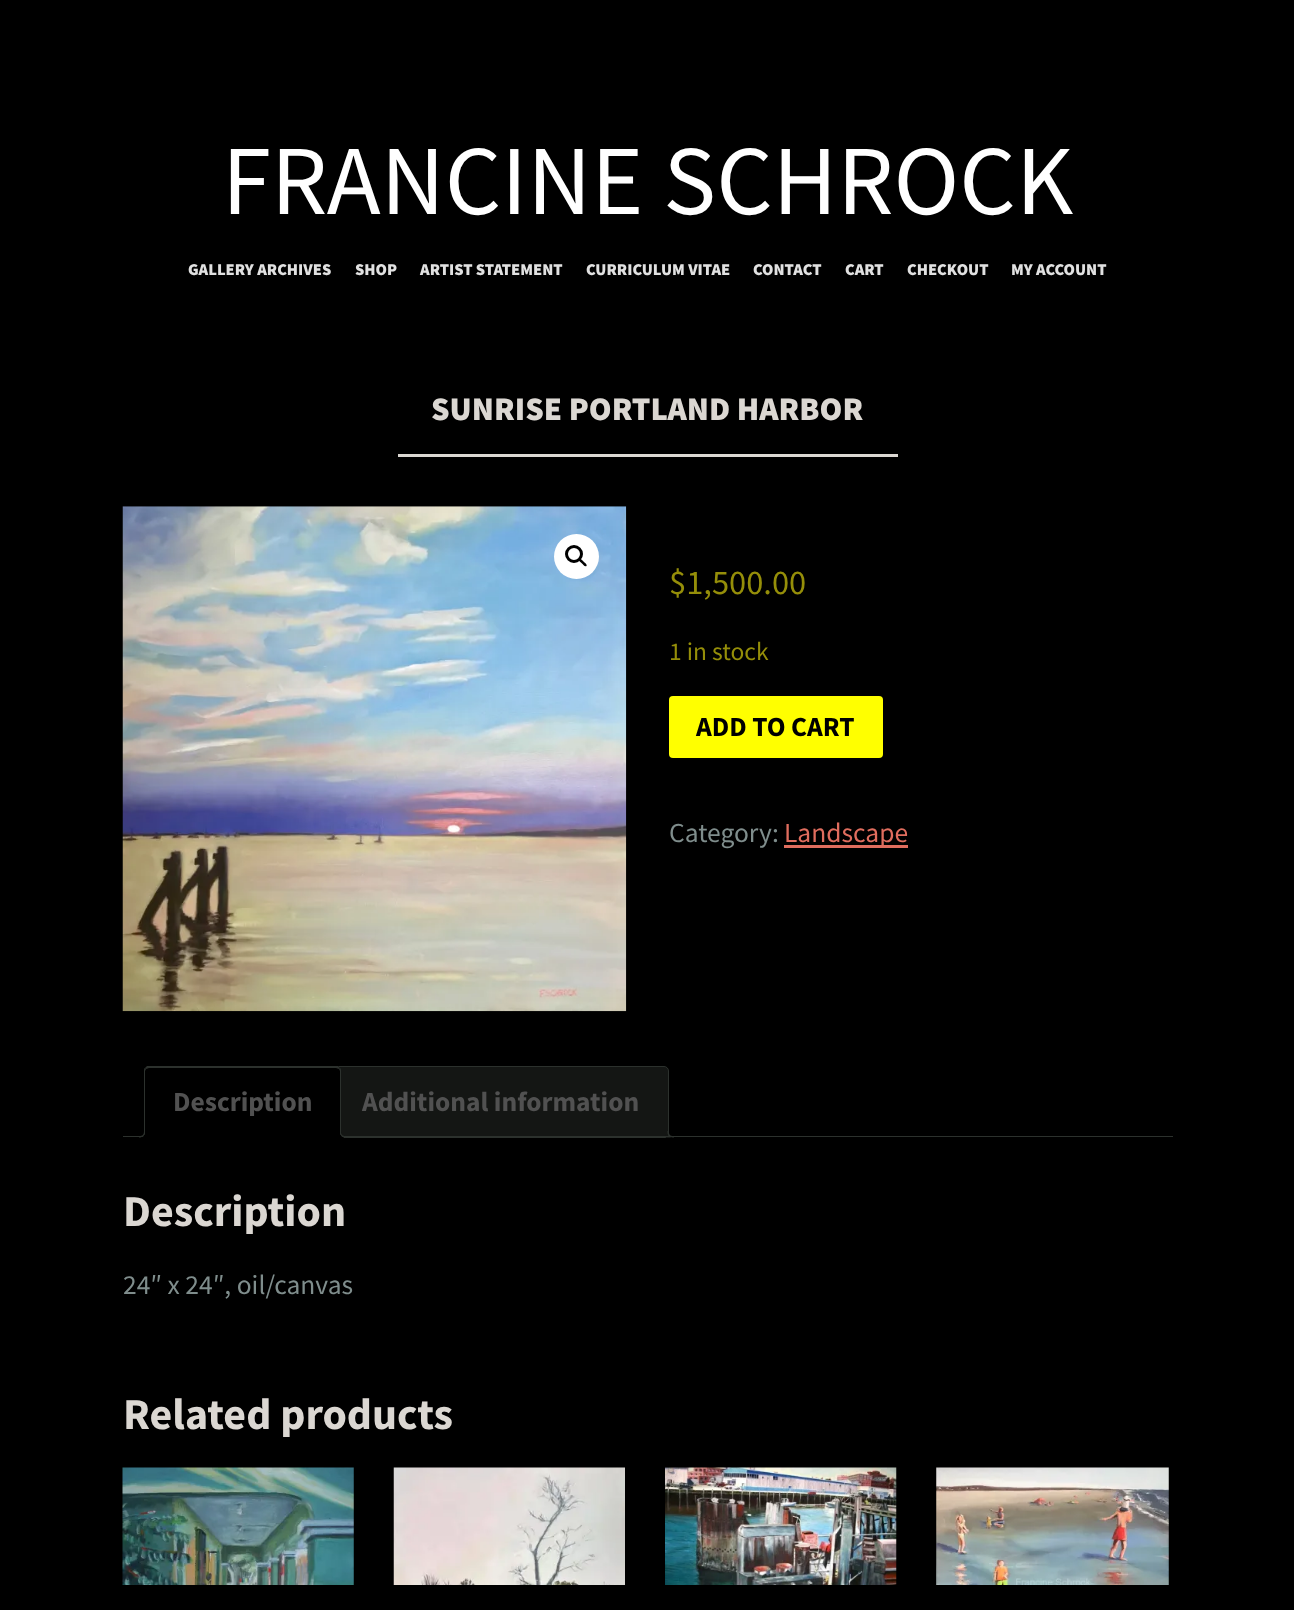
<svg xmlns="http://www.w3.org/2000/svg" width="1294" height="1610">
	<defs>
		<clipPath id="clip1"><rect x="123" y="1066" width="1050" height="72" /></clipPath>
	</defs>
	<rect width="100%" height="100%" fill="#000000" />
	<text x="222" y="214" font-family="Source Sans Pro" font-size="99" fill="#FFFFFF">FRANCINE SCHROCK</text>
	<g font-family="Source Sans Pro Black" font-size="16.5" font-weight="900" fill="#E1E1E1">
		<text x="188" y="275">GALLERY ARCHIVES</text>
		<text x="355" y="275">SHOP</text>
		<text x="420" y="275">ARTIST STATEMENT</text>
		<text x="586" y="275">CURRICULUM VITAE</text>
		<text x="753" y="275">CONTACT</text>
		<text x="845" y="275">CART</text>
		<text x="907" y="275">CHECKOUT</text>
		<text x="1011" y="275">MY ACCOUNT</text>
	</g>
	<text x="431" y="420" font-family="Source Sans Pro Black" font-size="33" font-weight="900" fill="#DBD7D2">SUNRISE PORTLAND HARBOR</text>
	<rect x="398" y="454" width="500" height="3" fill="#DBD7D2" />
	<image x="122" y="506" width="505" height="506" href="assets/img1.png" />
	<circle cx="576.5" cy="556.5" r="22.5" fill="#FFFFFF" />
	<circle cx="574" cy="554" r="7.5" fill="none" stroke="#000000" stroke-width="3" />
	<path d="M579 559C580.5 557.5 583 561 583.5 561.5C584.5 562.5 587.5 564.5 586.5 566C585 567.5 582.5 564 582 563.5C581 562.5 578 560.5 579 559Z" fill="#000000" />
	<text x="669" y="594" font-family="Source Sans Pro" font-size="34.5" fill="#958E09">$1,500.00</text>
	<text x="669" y="660" font-family="Source Sans Pro" font-size="25.5" fill="#958E09">1 in stock</text>
	<rect x="669" y="696" width="214" height="62" rx="4" fill="#FFFF00" />
	<text x="696" y="736" font-family="Source Sans Pro" font-size="27.5" font-weight="700" fill="#000000">ADD TO CART</text>
	<text x="669" y="842" font-family="Source Sans Pro" font-size="27.5" fill="#7F8D8C">Category:</text>
	<rect x="784" y="845" width="124" height="3" fill="#E06D5E" />
	<text x="784" y="842" font-family="Source Sans Pro" font-size="27.5" fill="#E06D5E">Landscape</text>
	<path d="M339 1066.5H664C666.5 1066.5 668.5 1068.5 668.5 1071V1137.5H334.5V1071C334.5 1068.5 336.5 1066.5 339 1066.5Z" fill="#141614" stroke="#2C312D" />
	<g clip-path="url(#clip1)">
		<path d="M665 1134C665 1138 667 1140 671 1140V1137.5C669.5 1137 668 1135.5 667.5 1134Z" fill="#141614" />
	</g>
	<path d="M667.5 1131H674V1137.5C670.5 1137.5 667.5 1136 667.5 1132.5ZM669 1131H674V1136C671.5 1136 669 1135.5 669 1132.5Z" fill="#2C312D" fill-rule="evenodd" />
	<rect x="123" y="1136" width="1050" height="1" fill="#2C312D" />
	<path d="M149 1066H336C339 1066 341 1068 341 1071V1138H144V1071C144 1068 146 1066 149 1066Z" fill="#000000" />
	<path d="M149 1068L146 1069L145 1068L147 1066H338L340 1068L339 1069L336 1068Z" fill="#2C312D" />
	<path d="M340 1068C341 1068 341 1070 341 1071V1137L340 1136V1071L339 1069Z" fill="#2C312D" />
	<path d="M144 1138L145 1136H340L341 1137Z" fill="#000000" />
	<path d="M144 1137V1071C144 1070 144 1068 145 1068L146 1069L145 1071V1136Z" fill="#2C312D" />
	<text x="173" y="1111" font-family="Source Sans Pro" font-size="27.5" font-weight="700" fill="#515151">Description</text>
	<g clip-path="url(#clip1)">
		<path d="M141 1137.5V1140C145.5 1140 148 1139 148 1134H145C144 1135.5 143 1137 141 1137.5Z" fill="#000000" />
	</g>
	<path d="M139 1131H145C145 1135.5 143 1137.5 139 1137.5ZM139 1131H144C144 1135 142.5 1136 139 1136Z" fill="#2C312D" fill-rule="evenodd" />
	<g clip-path="url(#clip1)">
		<path d="M338 1134C338 1138 340 1140 344 1140V1137.5C342 1137 341 1135.5 340 1134Z" fill="#000000" />
	</g>
	<path d="M340 1131H346V1137.5C343 1137.5 340 1136 340 1132.5ZM341 1131H346V1136C344 1136 341 1135.5 341 1132.5Z" fill="#2C312D" fill-rule="evenodd" />
	<text x="362" y="1111" font-family="Source Sans Pro" font-size="27.5" font-weight="700" fill="#515151">Additional information</text>
	<text x="123" y="1226" font-family="Source Sans Pro" font-size="44" font-weight="700" fill="#DBD7D2">Description</text>
	<text x="123" y="1294" font-family="Source Sans Pro" font-size="27.5" fill="#7F8D8C">24″ x 24″, oil/canvas</text>
	<text x="123" y="1429" font-family="Source Sans Pro" font-size="44" font-weight="700" fill="#DBD7D2">Related products</text>
	<image x="122" y="1467" width="232" height="118" href="assets/img2.png" />
	<image x="393" y="1467" width="232" height="118" href="assets/img3.png" />
	<image x="665" y="1467" width="232" height="118" href="assets/img4.png" />
	<image x="936" y="1467" width="233" height="118" href="assets/img5.png" />
</svg>
